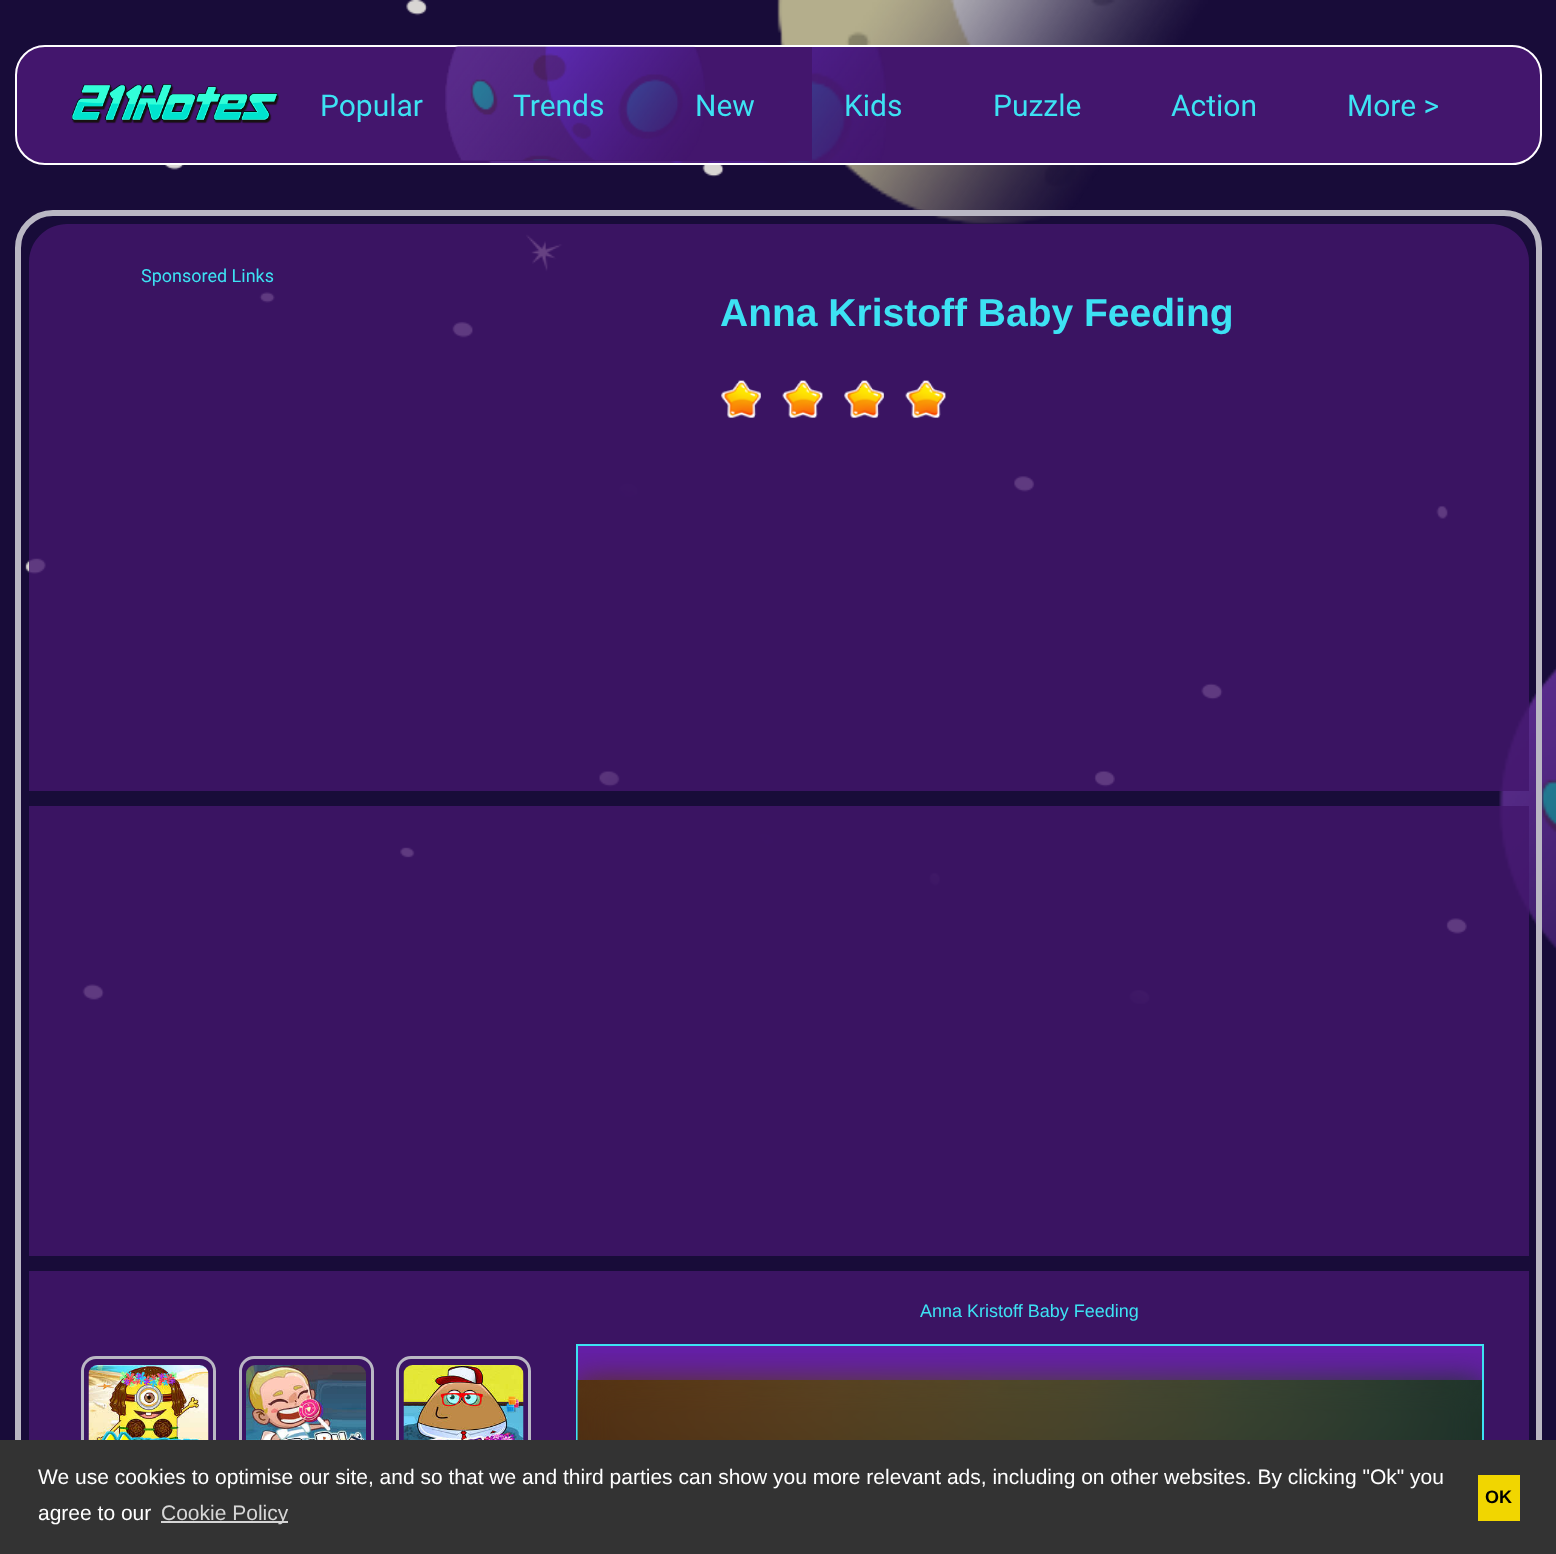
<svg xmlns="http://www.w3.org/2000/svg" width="1556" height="1554">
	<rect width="100%" height="100%" fill="#180C39" />
	<image x="25" y="0" width="1531" height="1004" href="assets/img1.png" />
	<rect x="15" y="45" width="1527" height="120" rx="30" fill="#43166D" />
	<image x="487" y="47" width="399" height="116" href="assets/img2.png" />
	<rect x="16" y="46" width="1525" height="118" rx="29" fill="none" stroke="#FFFFFF" stroke-width="2" />
	<image x="72" y="84" width="207" height="40" href="assets/img3.png" />
	<rect x="487" y="47" width="325" height="114" fill="#43166D" />
	<image x="445" y="46" width="260" height="115" href="assets/img4.png" />
	<g font-family="Roboto" font-size="30" fill="#3DE2F3">
		<text x="320" y="116">Popular</text>
		<text x="513" y="116">Trends</text>
		<text x="695" y="116">New</text>
		<text x="844" y="116">Kids</text>
		<text x="993" y="116">Puzzle</text>
		<text x="1171" y="116">Action</text>
		<text x="1347" y="116">More &gt;</text>
	</g>
	<rect x="18" y="213" width="1521" height="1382" rx="35" fill="none" stroke="#BAB7C4" stroke-width="6" />
	<path d="M67 224H1491C1512 224 1529 241 1529 262V791H29V262C29 241 46 224 67 224Z" fill="#43166D" fill-opacity="0.81" />
	<text x="141" y="282" font-family="Roboto" font-size="18" fill="#3DE2F3">Sponsored Links</text>
	<text x="720" y="326" font-family="Liberation Sans" font-size="39" font-weight="700" fill="#3DE2F3">Anna Kristoff Baby Feeding</text>
	<image x="721" y="380" width="40" height="38" href="assets/img5.png" />
	<image x="782" y="380" width="41" height="38" href="assets/img6.png" />
	<image x="844" y="380" width="40" height="38" href="assets/img7.png" />
	<image x="905" y="380" width="41" height="38" href="assets/img6.png" />
	<rect x="29" y="806" width="1500" height="450" fill="#43166D" fill-opacity="0.81" />
	<rect x="29" y="1271" width="1500" height="169" fill="#3B1463" />
	<text x="920" y="1317" font-family="Liberation Sans" font-size="18" fill="#3DE2F3">Anna Kristoff Baby Feeding</text>
	<rect x="578" y="1346" width="904" height="34" fill="#641FA5" />
	<rect x="577" y="1345" width="906" height="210" fill="none" stroke="#3DE2F3" stroke-width="2" />
	<image x="577" y="1380" width="905" height="60" href="assets/img8.png" />
	<image x="577" y="1353" width="905" height="87" href="assets/img9.png" />
	<rect x="82.5" y="1357.5" width="132" height="135" rx="13.5" fill="none" stroke="#BAB7C4" stroke-width="3" />
	<image x="88" y="1365" width="121" height="75" href="assets/img10.png" />
	<rect x="240.5" y="1357.5" width="132" height="135" rx="13.5" fill="none" stroke="#BAB7C4" stroke-width="3" />
	<image x="246" y="1365" width="120" height="75" href="assets/img11.png" />
	<rect x="397.5" y="1357.5" width="132" height="135" rx="13.5" fill="none" stroke="#BAB7C4" stroke-width="3" />
	<image x="403" y="1365" width="121" height="75" href="assets/img12.png" />
	<rect x="0" y="1440" width="1556" height="114" fill="#333333" />
	<g font-family="Liberation Sans" font-size="21" fill="#FFFFFF">
		<text x="38" y="1484">We use cookies to optimise our site, and so that we and third parties can show you more relevant ads, including on other websites. By clicking "Ok" you</text>
		<text x="38" y="1520">agree to our</text>
	</g>
	<rect x="161" y="1521" width="127" height="2" fill="#D6D6D6" />
	<text x="161" y="1520" font-family="Liberation Sans" font-size="21" fill="#D6D6D6">Cookie Policy</text>
	<rect x="1478" y="1475" width="42" height="46" fill="#F1D600" />
	<text x="1485" y="1503" font-family="Liberation Sans" font-size="18" font-weight="700" fill="#000000">OK</text>
</svg>
